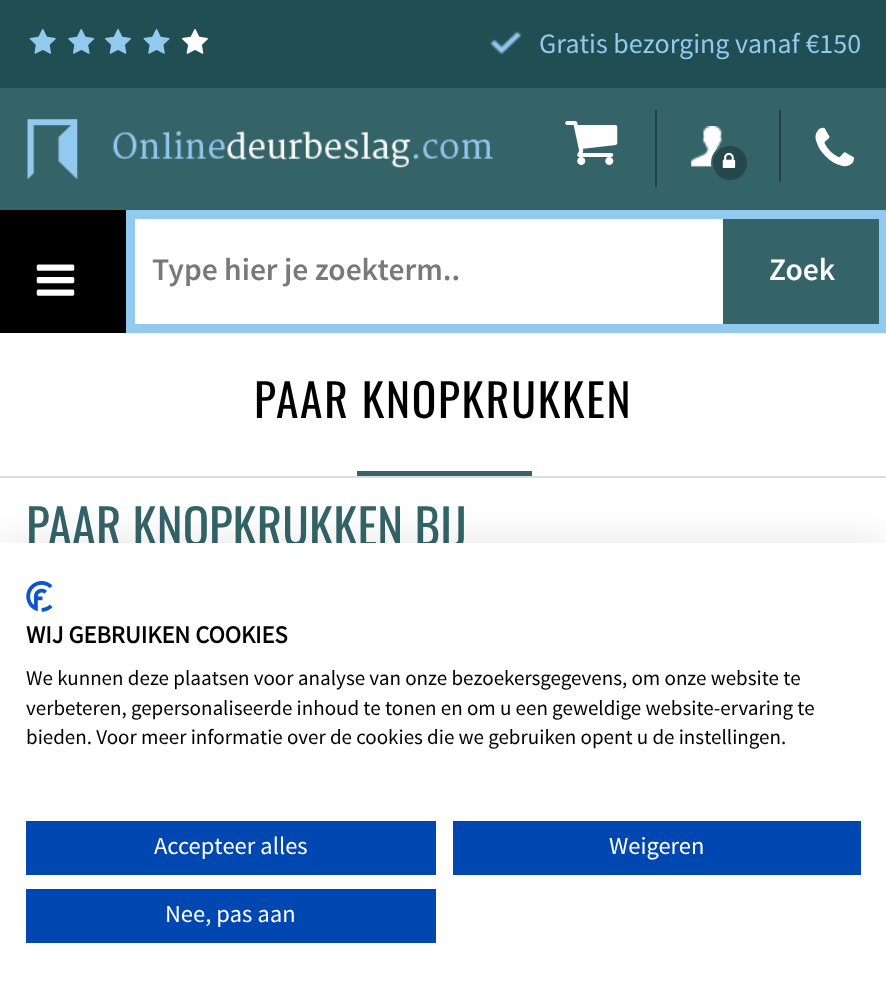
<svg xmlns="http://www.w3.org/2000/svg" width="886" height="990">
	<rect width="100%" height="100%" fill="#214E53" />
	<image x="29" y="29" width="27" height="25" href="assets/img1.png" />
	<image x="68" y="29" width="27" height="25" href="assets/img2.png" />
	<image x="105" y="29" width="26" height="25" href="assets/img3.png" />
	<image x="143" y="29" width="27" height="25" href="assets/img4.png" />
	<image x="182" y="29" width="26" height="25" href="assets/img5.png" />
	<image x="489" y="31" width="33" height="24" href="assets/img6.png" />
	<text x="539" y="53" font-family="Source Sans Pro" font-size="28" fill="#92C9EE">Gratis bezorging vanaf €150</text>
	<rect x="0" y="88" width="886" height="122" fill="#346368" />
	<image x="27" y="119" width="467" height="61" href="assets/img7.png" />
	<rect x="655" y="110" width="2" height="77" fill="#224346" />
	<image x="565" y="121" width="53" height="44" href="assets/img8.png" />
	<image x="691" y="126" width="32" height="41" href="assets/img9.png" />
	<circle cx="730" cy="163" r="18" fill="#25484C" stroke="#346368" stroke-width="2" />
	<image x="722" y="152" width="14" height="16" href="assets/img10.png" />
	<rect x="779" y="110" width="2" height="72" fill="#224346" />
	<image x="815" y="127" width="39" height="40" href="assets/img11.png" />
	<rect x="0" y="210" width="126" height="123" fill="#000000" />
	<image x="36" y="264" width="39" height="32" href="assets/img12.png" />
	<rect x="126" y="210" width="760" height="123" fill="#92C9EE" />
	<rect x="135" y="219" width="588" height="105" fill="#FFFFFF" />
	<text x="152" y="280" font-family="Source Sans Pro" font-size="31.5" font-weight="600" fill="#797979">Type hier je zoekterm..</text>
	<rect x="723" y="219" width="156" height="105" fill="#346368" />
	<text x="769" y="280" font-family="Source Sans Pro" font-size="31.5" font-weight="600" fill="#FFFFFF">Zoek</text>
	<rect x="0" y="333" width="886" height="210" fill="#FFFFFF" />
	<rect x="0" y="476" width="886" height="2" fill="#DCDCDC" />
	<text x="254" y="418" font-family="Oswald" font-size="45.5" letter-spacing="1.75" fill="#000000">PAAR KNOPKRUKKEN</text>
	<rect x="357" y="471" width="175" height="5" fill="#346468" />
	<text x="26" y="546" font-family="Oswald" font-size="49" fill="#346468">PAAR KNOPKRUKKEN BIJ</text>
	<rect x="0" y="543" width="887" height="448" fill="#000000" fill-opacity="0.1" filter="blur(21px)" />
	<rect x="0" y="543" width="886" height="447" fill="#FFFFFF" />
	<image x="26" y="581" width="27" height="31" href="assets/img13.png" />
	<text x="26" y="643" font-family="Source Sans Pro" font-size="24.5" font-weight="700" fill="#000000">WIJ GEBRUIKEN COOKIES</text>
	<g font-family="Source Sans Pro" font-size="21" fill="#000000">
		<text x="26" y="685">We kunnen deze plaatsen voor analyse van onze bezoekersgegevens, om onze website te</text>
		<text x="26" y="715">verbeteren, gepersonaliseerde inhoud te tonen en om u een geweldige website-ervaring te</text>
		<text x="26" y="744">bieden. Voor meer informatie over de cookies die we gebruiken opent u de instellingen.</text>
	</g>
	<rect x="26" y="821" width="410" height="54" fill="#0047B2" />
	<text x="154" y="854" font-family="Source Sans Pro" font-size="24.5" fill="#FFFFFF">Accepteer alles</text>
	<rect x="453" y="821" width="408" height="54" fill="#0047B2" />
	<text x="609" y="854" font-family="Source Sans Pro" font-size="24.5" fill="#FFFFFF">Weigeren</text>
	<rect x="26" y="889" width="410" height="54" fill="#0047B2" />
	<text x="165" y="922" font-family="Source Sans Pro" font-size="24.5" fill="#FFFFFF">Nee, pas aan</text>
</svg>
